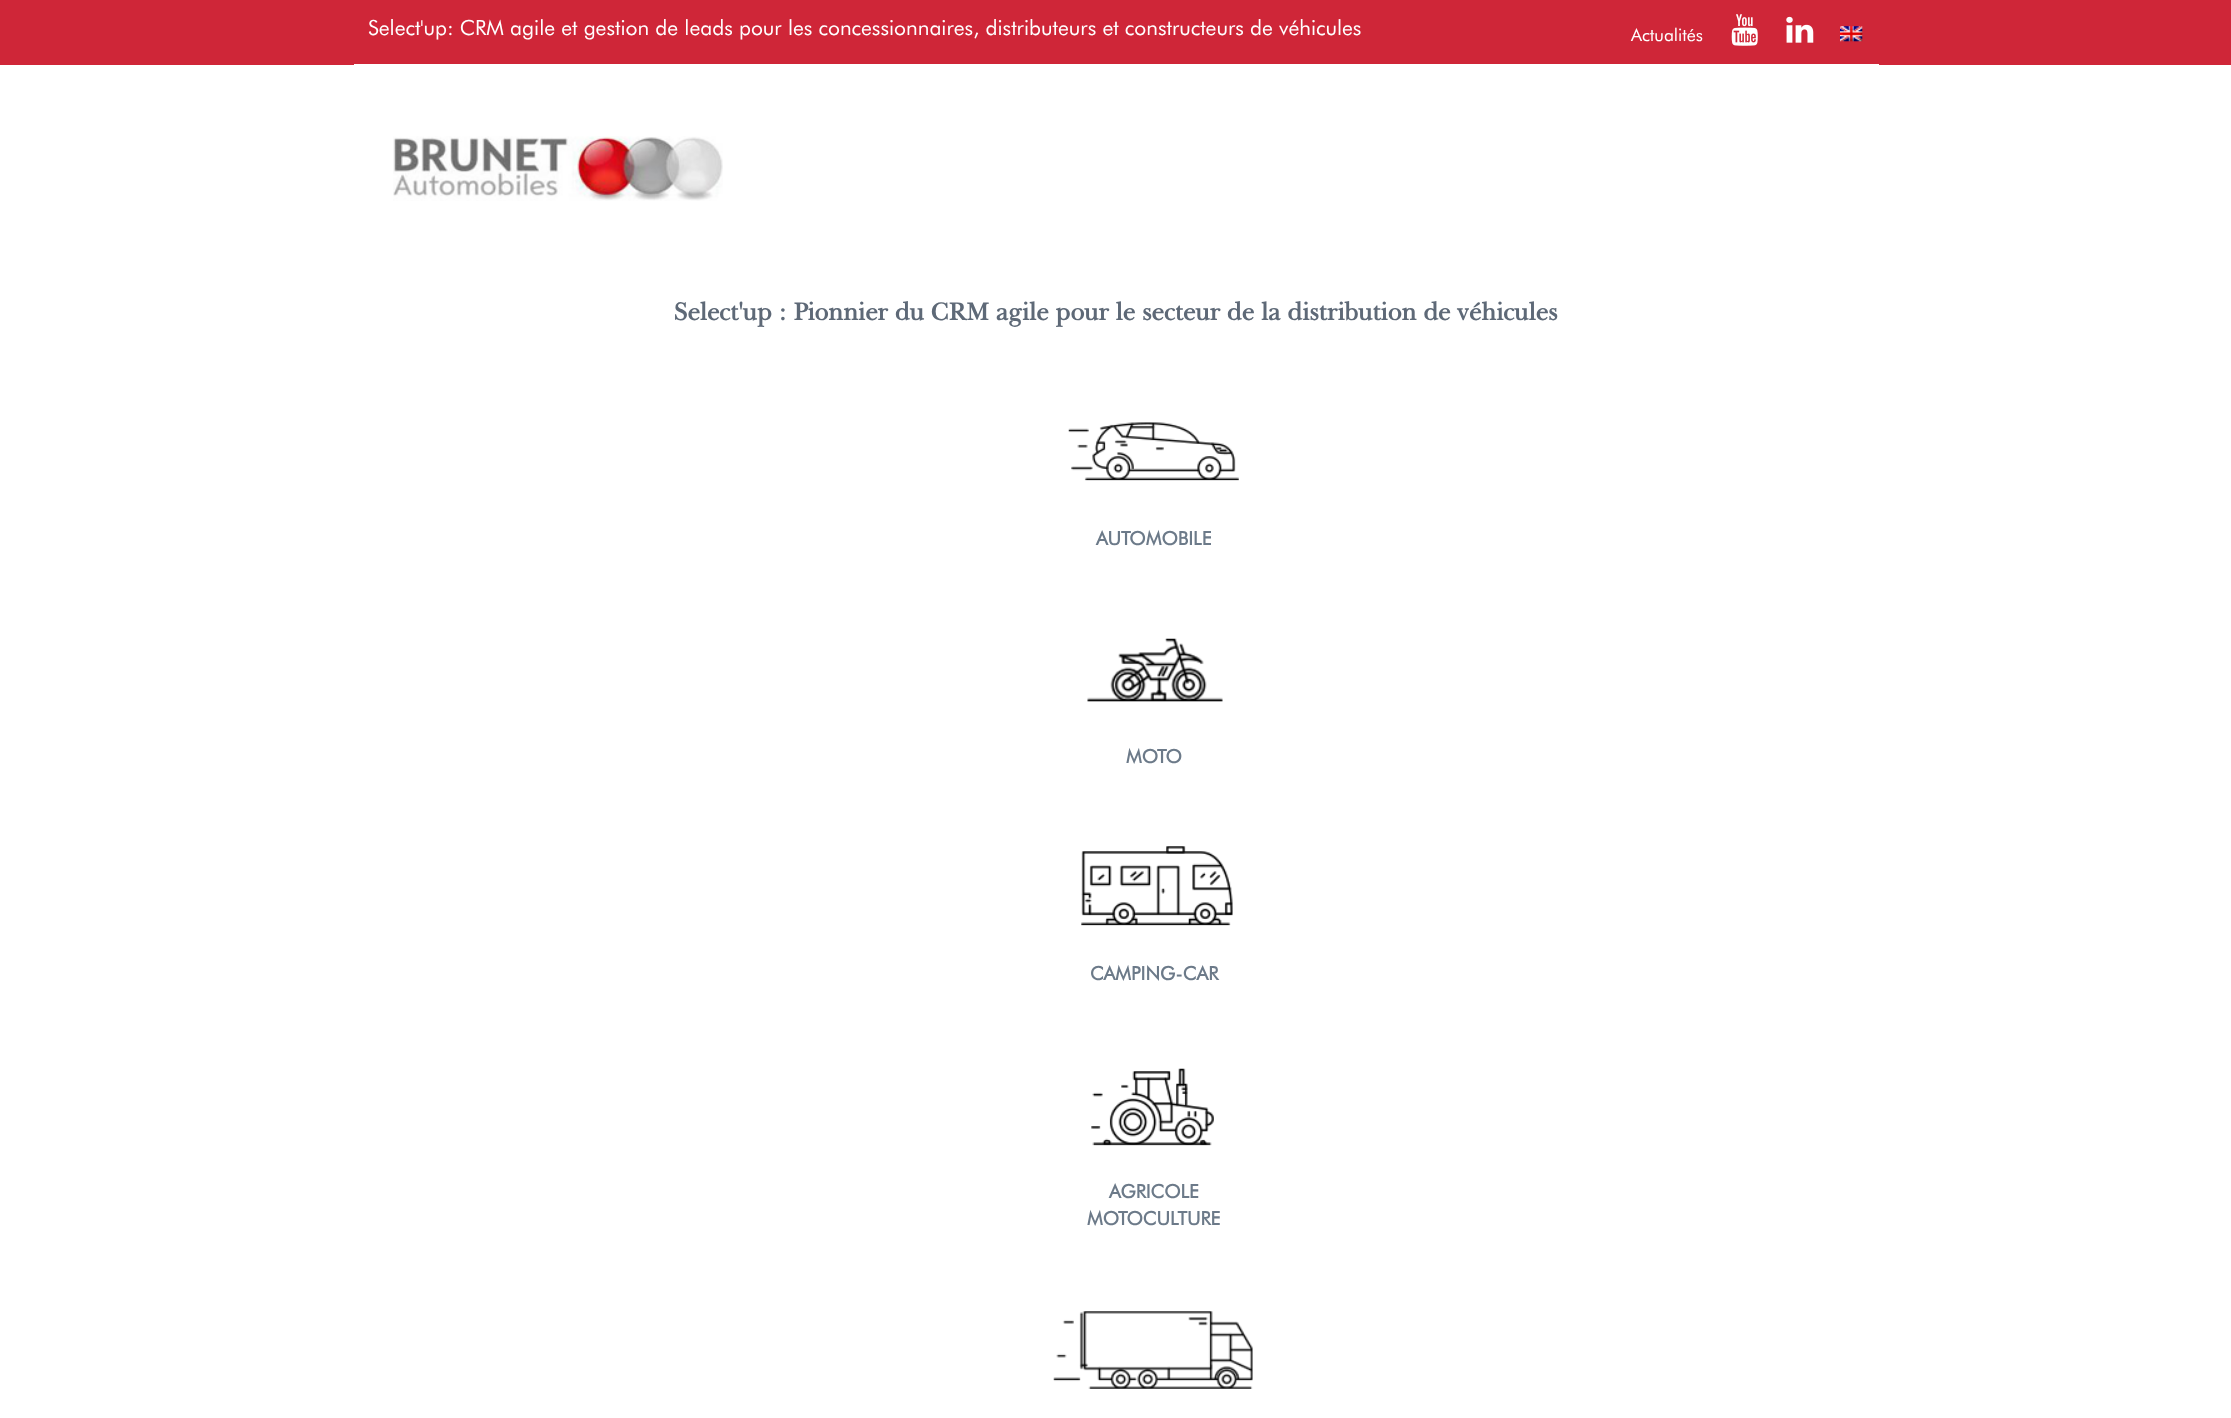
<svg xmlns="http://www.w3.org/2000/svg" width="2231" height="1418">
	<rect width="100%" height="100%" fill="#FFFFFF" />
	<rect x="0" y="0" width="2231" height="65" fill="#CF2638" />
	<rect x="354" y="64" width="1525" height="1" fill="#FFFFFF" />
	<text x="368" y="35" font-family="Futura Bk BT" font-size="21" fill="#FFFFFF">Select'up: CRM agile et gestion de leads pour les concessionnaires, distributeurs et constructeurs de véhicules</text>
	<text x="1631" y="41" font-family="Futura Bk BT" font-size="17.5" fill="#FFFFFF">Actualités</text>
	<image x="1731" y="14" width="27" height="32" href="assets/img1.png" />
	<image x="1786" y="16" width="28" height="27" href="assets/img2.png" />
	<image x="1840" y="26" width="23" height="16" href="assets/img3.png" />
	<image x="393" y="136" width="330" height="65" href="assets/img4.png" />
	<text x="674" y="320" font-family="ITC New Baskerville" font-size="25" font-weight="700" fill="#5E6977">Select'up : Pionnier du CRM agile pour le secteur de la distribution de véhicules</text>
	<image x="1068" y="422" width="171" height="59" href="assets/img5.png" />
	<text x="1096" y="545" font-family="Futura Bk BT" font-size="18.75" font-weight="700" fill="#6C7A89">AUTOMOBILE</text>
	<image x="1087" y="638" width="136" height="64" href="assets/img6.png" />
	<text x="1126" y="763" font-family="Futura Bk BT" font-size="18.75" font-weight="700" fill="#6C7A89">MOTO</text>
	<image x="1081" y="846" width="152" height="80" href="assets/img7.png" />
	<text x="1090" y="980" font-family="Futura Bk BT" font-size="18.75" font-weight="700" fill="#6C7A89">CAMPING-CAR</text>
	<image x="1091" y="1068" width="123" height="78" href="assets/img8.png" />
	<g font-family="Futura Bk BT" font-size="18.75" font-weight="700" fill="#6C7A89">
		<text x="1109" y="1198">AGRICOLE</text>
		<text x="1087" y="1225">MOTOCULTURE</text>
	</g>
	<image x="1053" y="1311" width="200" height="78" href="assets/img9.png" />
</svg>
